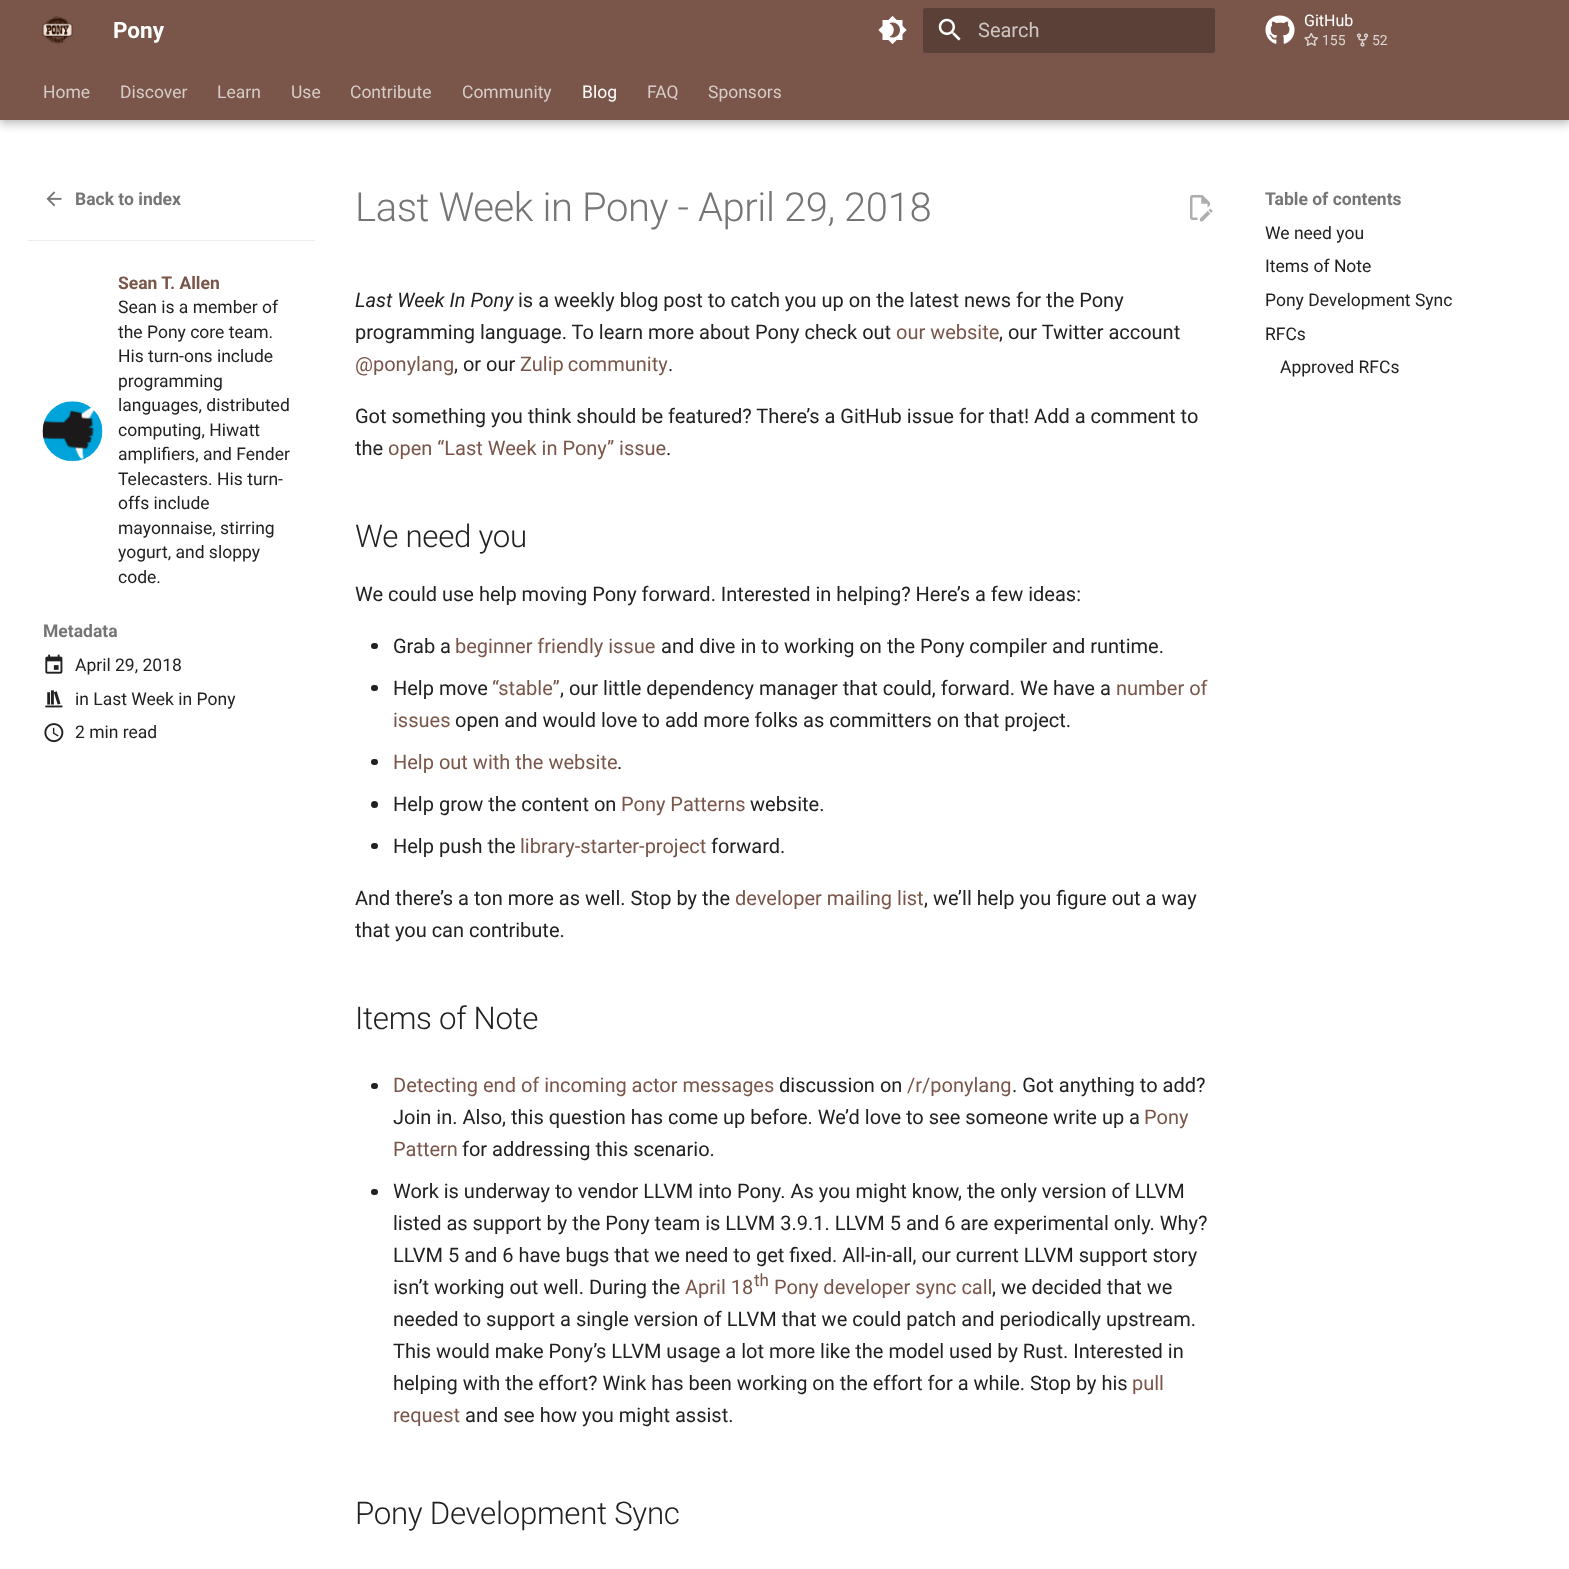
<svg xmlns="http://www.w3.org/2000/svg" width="1569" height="1569">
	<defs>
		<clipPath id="clip1"><rect x="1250" y="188" width="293" height="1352" /></clipPath>
		<clipPath id="clip2"><path d="M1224 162H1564V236H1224ZM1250 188H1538V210H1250Z" clip-rule="evenodd" /></clipPath>
	</defs>
	<rect width="100%" height="100%" fill="#FFFFFF" />
	<rect x="0" y="5" width="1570" height="120" fill="#000000" fill-opacity="0.2" filter="blur(5px)" />
	<rect x="0" y="0" width="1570" height="120" fill="#000000" fill-opacity="0.1" filter="blur(2.5px)" />
	<rect x="0" y="0" width="1569" height="120" fill="#795649" />
	<image x="42" y="16" width="31" height="28" href="assets/img1.png" />
	<text x="113" y="38" font-family="Roboto" font-size="22.5" font-weight="700" fill="#FFFFFF">Pony</text>
	<image x="878" y="16" width="29" height="28" href="assets/img2.png" />
	<rect x="923" y="8" width="292" height="45" rx="2.5" fill="#5A4036" />
	<image x="938" y="18" width="23" height="23" href="assets/img3.png" />
	<text x="978" y="37" font-family="Roboto" font-size="20" fill="#CEC6C3">Search</text>
	<image x="1265" y="15" width="30" height="29" href="assets/img4.png" />
	<text x="1304" y="26" font-family="Roboto" font-size="16" fill="#FFFFFF">GitHub</text>
	<image x="1304" y="33" width="15" height="13" href="assets/img5.png" />
	<text x="1322" y="45" font-family="Roboto" font-size="14" fill="#DED5D2">155</text>
	<image x="1356" y="33" width="13" height="14" href="assets/img6.png" />
	<text x="1372" y="45" font-family="Roboto" font-size="14" fill="#DED5D2">52</text>
	<g font-family="Roboto" font-size="17.5" fill="#D7CCC8">
		<text x="43" y="98">Home</text>
		<text x="120" y="98">Discover</text>
		<text x="217" y="98">Learn</text>
		<text x="291" y="98">Use</text>
		<text x="350" y="98">Contribute</text>
		<text x="462" y="98">Community</text>
	</g>
	<text x="582" y="98" font-family="Roboto" font-size="17.5" fill="#FFFFFF">Blog</text>
	<g font-family="Roboto" font-size="17.5" fill="#D7CCC8">
		<text x="647" y="98">FAQ</text>
		<text x="708" y="98">Sponsors</text>
	</g>
	<rect x="28" y="240" width="287" height="1" fill="#EDEDED" />
	<image x="46" y="191" width="16" height="16" href="assets/img7.png" />
	<text x="75" y="205" font-family="Roboto" font-size="17.5" font-weight="700" fill="#757575">Back to index</text>
	<image x="42" y="401" width="61" height="61" href="assets/img8.png" />
	<text x="118" y="289" font-family="Roboto" font-size="17.5" font-weight="700" fill="#795649">Sean T. Allen</text>
	<g font-family="Roboto" font-size="17.5" fill="#212121">
		<text x="118" y="313">Sean is a member of</text>
		<text x="118" y="338">the Pony core team.</text>
		<text x="118" y="362">His turn-ons include</text>
		<text x="118" y="387">programming</text>
		<text x="118" y="411">languages, distributed</text>
		<text x="118" y="436">computing, Hiwatt</text>
		<text x="118" y="460">amplifiers, and Fender</text>
		<text x="118" y="485">Telecasters. His turn-</text>
		<text x="118" y="509">offs include</text>
		<text x="118" y="534">mayonnaise, stirring</text>
		<text x="118" y="558">yogurt, and sloppy</text>
		<text x="118" y="583">code.</text>
	</g>
	<text x="43" y="637" font-family="Roboto" font-size="17.5" font-weight="700" fill="#757575">Metadata</text>
	<image x="45" y="654" width="18" height="20" href="assets/img9.png" />
	<text x="75" y="671" font-family="Roboto" font-size="17.5" fill="#212121">April 29, 2018</text>
	<image x="45" y="690" width="18" height="18" href="assets/img10.png" />
	<text x="75" y="705" font-family="Roboto" font-size="17.5" fill="#212121">in Last Week in Pony</text>
	<image x="44" y="723" width="20" height="20" href="assets/img11.png" />
	<text x="75" y="738" font-family="Roboto" font-size="17.5" fill="#212121">2 min read</text>
	<text x="355" y="221" font-family="Roboto" font-size="40" font-weight="300" letter-spacing="-0.4" fill="#757575">Last Week in Pony - April 29, 2018</text>
	<image x="1190" y="195" width="23" height="27" href="assets/img12.png" />
	<text x="355" y="307" font-family="Roboto" font-size="20" font-style="italic" fill="#212121">Last Week In Pony</text>
	<g font-family="Roboto" font-size="20" fill="#212121">
		<text x="518" y="307">is a weekly blog post to catch you up on the latest news for the Pony</text>
		<text x="355" y="339">programming language. To learn more about Pony check out</text>
	</g>
	<text x="896" y="339" font-family="Roboto" font-size="20" fill="#795649">our website</text>
	<text x="999" y="339" font-family="Roboto" font-size="20" fill="#212121">, our Twitter account</text>
	<text x="355" y="371" font-family="Roboto" font-size="20" fill="#795649">@ponylang</text>
	<text x="454" y="371" font-family="Roboto" font-size="20" fill="#212121">, or our</text>
	<text x="520" y="371" word-spacing="-1" font-family="Roboto" font-size="20" fill="#795649">Zulip community</text>
	<g font-family="Roboto" font-size="20" fill="#212121">
		<text x="668" y="371">.</text>
		<text x="355" y="423">Got something you think should be featured? There’s a GitHub issue for that! Add a comment to</text>
		<text x="355" y="455">the</text>
	</g>
	<text x="388" y="455" font-family="Roboto" font-size="20" fill="#795649">open “Last Week in Pony” issue</text>
	<text x="666" y="455" font-family="Roboto" font-size="20" fill="#212121">.</text>
	<text x="355" y="547" font-family="Roboto" font-size="31.25" font-weight="300" letter-spacing="-0.3" fill="#212121">We need you</text>
	<text x="355" y="601" font-family="Roboto" font-size="20" fill="#212121">We could use help moving Pony forward. Interested in helping? Here’s a few ideas:</text>
	<rect x="371" y="643" width="7" height="6" rx="3" fill="#212121" />
	<text x="393" y="653" font-family="Roboto" font-size="20" fill="#212121">Grab a</text>
	<text x="455" y="653" font-family="Roboto" font-size="20" fill="#795649">beginner friendly issue</text>
	<text x="661" y="653" font-family="Roboto" font-size="20" fill="#212121">and dive in to working on the Pony compiler and runtime.</text>
	<rect x="371" y="685" width="7" height="6" rx="3" fill="#212121" />
	<text x="393" y="695" font-family="Roboto" font-size="20" fill="#212121">Help move</text>
	<text x="492" y="695" font-family="Roboto" font-size="20" fill="#795649">“stable”</text>
	<text x="560" y="695" font-family="Roboto" font-size="20" fill="#212121">, our little dependency manager that could, forward. We have a</text>
	<g font-family="Roboto" font-size="20" fill="#795649">
		<text x="1116" y="695">number of</text>
		<text x="393" y="727">issues</text>
	</g>
	<text x="455" y="727" font-family="Roboto" font-size="20" fill="#212121">open and would love to add more folks as committers on that project.</text>
	<rect x="371" y="759" width="7" height="6" rx="3" fill="#212121" />
	<text x="393" y="769" font-family="Roboto" font-size="20" fill="#795649">Help out with the website</text>
	<text x="617" y="769" font-family="Roboto" font-size="20" fill="#212121">.</text>
	<circle cx="374.5" cy="804.5" r="3.5" fill="#212121" />
	<text x="393" y="811" font-family="Roboto" font-size="20" fill="#212121">Help grow the content on</text>
	<text x="621" y="811" font-family="Roboto" font-size="20" fill="#795649">Pony Patterns</text>
	<text x="750" y="811" font-family="Roboto" font-size="20" fill="#212121">website.</text>
	<rect x="371" y="843" width="7" height="6" rx="3" fill="#212121" />
	<text x="393" y="853" font-family="Roboto" font-size="20" fill="#212121">Help push the</text>
	<text x="520" y="853" font-family="Roboto" font-size="20" fill="#795649">library-starter-project</text>
	<g font-family="Roboto" font-size="20" fill="#212121">
		<text x="711" y="853">forward.</text>
		<text x="355" y="905">And there’s a ton more as well. Stop by the</text>
	</g>
	<text x="735" y="905" font-family="Roboto" font-size="20" fill="#795649">developer mailing list</text>
	<g font-family="Roboto" font-size="20" fill="#212121">
		<text x="924" y="905">, we’ll help you figure out a way</text>
		<text x="355" y="937">that you can contribute.</text>
	</g>
	<text x="355" y="1029" font-family="Roboto" font-size="31.25" font-weight="300" letter-spacing="-0.3" fill="#212121">Items of Note</text>
	<rect x="371" y="1083" width="7" height="6" rx="3" fill="#212121" />
	<text x="393" y="1092" font-family="Roboto" font-size="20" fill="#795649">Detecting end of incoming actor messages</text>
	<text x="779" y="1092" font-family="Roboto" font-size="20" fill="#212121">discussion on</text>
	<text x="907" y="1092" font-family="Roboto" font-size="20" fill="#795649">/r/ponylang</text>
	<g font-family="Roboto" font-size="20" fill="#212121">
		<text x="1012" y="1092">. Got anything to add?</text>
		<text x="393" y="1124">Join in. Also, this question has come up before. We’d love to see someone write up a</text>
	</g>
	<g font-family="Roboto" font-size="20" fill="#795649">
		<text x="1144" y="1124">Pony</text>
		<text x="393" y="1156">Pattern</text>
	</g>
	<text x="462" y="1156" font-family="Roboto" font-size="20" fill="#212121">for addressing this scenario.</text>
	<rect x="371" y="1189" width="7" height="6" rx="3" fill="#212121" />
	<g font-family="Roboto" font-size="20" fill="#212121">
		<text x="393" y="1198">Work is underway to vendor LLVM into Pony. As you might know, the only version of LLVM</text>
		<text x="393" y="1230">listed as support by the Pony team is LLVM 3.9.1. LLVM 5 and 6 are experimental only. Why?</text>
		<text x="393" y="1262">LLVM 5 and 6 have bugs that we need to get fixed. All-in-all, our current LLVM support story</text>
		<text x="393" y="1294">isn’t working out well. During the</text>
	</g>
	<text x="685" y="1294" font-family="Roboto" font-size="20" fill="#795649">April 18</text>
	<text x="754" y="1286" font-family="Roboto" font-size="17" fill="#795649">th</text>
	<text x="774" y="1294" font-family="Roboto" font-size="20" fill="#795649">Pony developer sync call</text>
	<g font-family="Roboto" font-size="20" fill="#212121">
		<text x="992" y="1294">, we decided that we</text>
		<text x="393" y="1326">needed to support a single version of LLVM that we could patch and periodically upstream.</text>
		<text x="393" y="1358">This would make Pony’s LLVM usage a lot more like the model used by Rust. Interested in</text>
		<text x="393" y="1390">helping with the effort? Wink has been working on the effort for a while. Stop by his</text>
	</g>
	<g font-family="Roboto" font-size="20" fill="#795649">
		<text x="1132" y="1390">pull</text>
		<text x="393" y="1422">request</text>
	</g>
	<text x="465" y="1422" font-family="Roboto" font-size="20" fill="#212121">and see how you might assist.</text>
	<text x="355" y="1524" font-family="Roboto" font-size="31.25" font-weight="300" letter-spacing="-0.3" fill="#212121">Pony Development Sync</text>
	<g clip-path="url(#clip1)">
		<g clip-path="url(#clip2)">
			<rect x="1240" y="178" width="308" height="42" fill="#FFFFFF" filter="blur(5px)" />
		</g>
	</g>
	<text x="1265" y="205" font-family="Roboto" font-size="17.5" font-weight="700" fill="#757575">Table of contents</text>
	<g font-family="Roboto" font-size="17.5" fill="#212121">
		<text x="1265" y="239">We need you</text>
		<text x="1265" y="272">Items of Note</text>
		<text x="1265" y="306">Pony Development Sync</text>
		<text x="1265" y="340">RFCs</text>
		<text x="1280" y="373">Approved RFCs</text>
	</g>
</svg>
